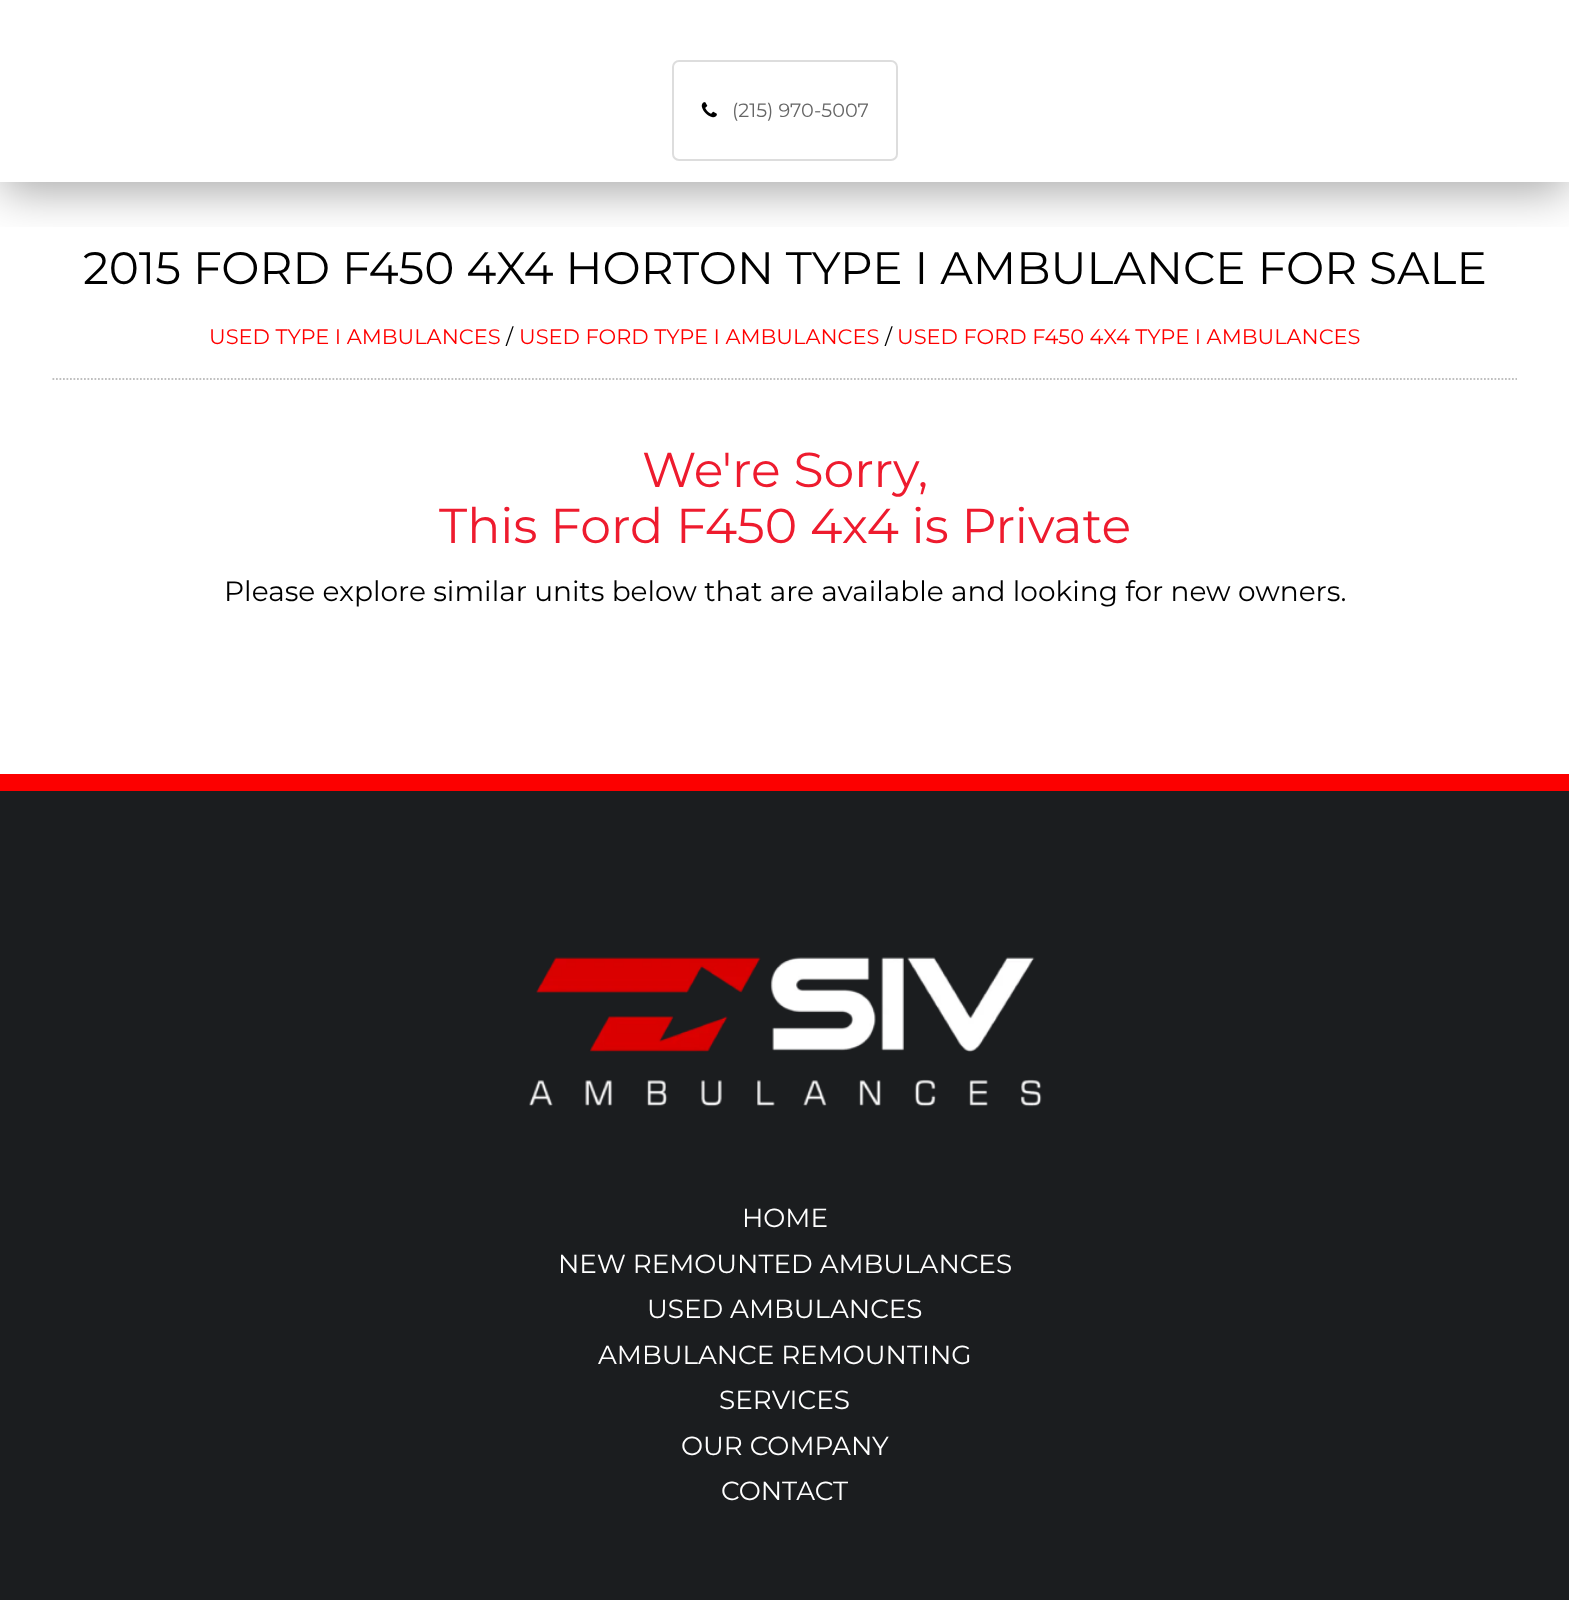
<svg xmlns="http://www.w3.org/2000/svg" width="1569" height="1600">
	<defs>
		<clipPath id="clip1"><rect x="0" y="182" width="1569" height="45" /></clipPath>
	</defs>
	<rect width="100%" height="100%" fill="#FFFFFF" />
	<g clip-path="url(#clip1)">
		<rect x="2" y="-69" width="1566" height="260" fill="#000000" fill-opacity="0.35" filter="blur(23px)" />
	</g>
	<rect x="673" y="61" width="224" height="99" rx="6" fill="none" stroke="#DDDDDD" stroke-width="2" />
	<image x="701" y="102" width="16" height="16" href="assets/img1.png" />
	<text x="732" y="117" font-family="Montserrat" font-size="19.25" font-weight="100" fill="#666666">(215) 970-5007</text>
	<text x="83" y="284" font-family="Montserrat" font-size="45.5" font-weight="100" fill="#000000">2015 FORD F450 4X4 HORTON TYPE I AMBULANCE FOR SALE</text>
	<path d="M52.5 379H1517" fill="none" stroke="#C0C0C0" stroke-width="1.8" stroke-dasharray="1.75 1.75" />
	<text x="209" y="344" font-family="Montserrat" font-size="21" font-weight="100" fill="#FF0000">USED TYPE I AMBULANCES</text>
	<text x="506" y="344" font-family="Montserrat" font-size="21" font-weight="100" fill="#000000">/</text>
	<text x="519" y="344" font-family="Montserrat" font-size="21" font-weight="100" fill="#FF0000">USED FORD TYPE I AMBULANCES</text>
	<text x="885" y="344" font-family="Montserrat" font-size="21" font-weight="100" fill="#000000">/</text>
	<text x="897" y="344" font-family="Montserrat" font-size="21" font-weight="100" fill="#FF0000">USED FORD F450 4X4 TYPE I AMBULANCES</text>
	<g font-family="Montserrat" font-size="49" font-weight="100" fill="#EE1B2E">
		<text x="642" y="487">We're Sorry,</text>
		<text x="439" y="543">This Ford F450 4x4 is Private</text>
	</g>
	<text x="224" y="601" font-family="Montserrat" font-size="28" font-weight="100" fill="#000000">Please explore similar units below that are available and looking for new owners.</text>
	<rect x="0" y="791" width="1569" height="809" fill="#1B1D1F" />
	<rect x="0" y="774" width="1569" height="17" fill="#FC0000" />
	<image x="529" y="957" width="513" height="150" href="assets/img2.png" />
	<g font-family="Montserrat" font-size="26.25" font-weight="100" fill="#FFFFFF">
		<text x="742" y="1227">HOME</text>
		<text x="558" y="1273">NEW REMOUNTED AMBULANCES</text>
		<text x="647" y="1318">USED AMBULANCES</text>
		<text x="598" y="1364">AMBULANCE REMOUNTING</text>
		<text x="719" y="1409">SERVICES</text>
		<text x="681" y="1455">OUR COMPANY</text>
		<text x="721" y="1500">CONTACT</text>
	</g>
</svg>
